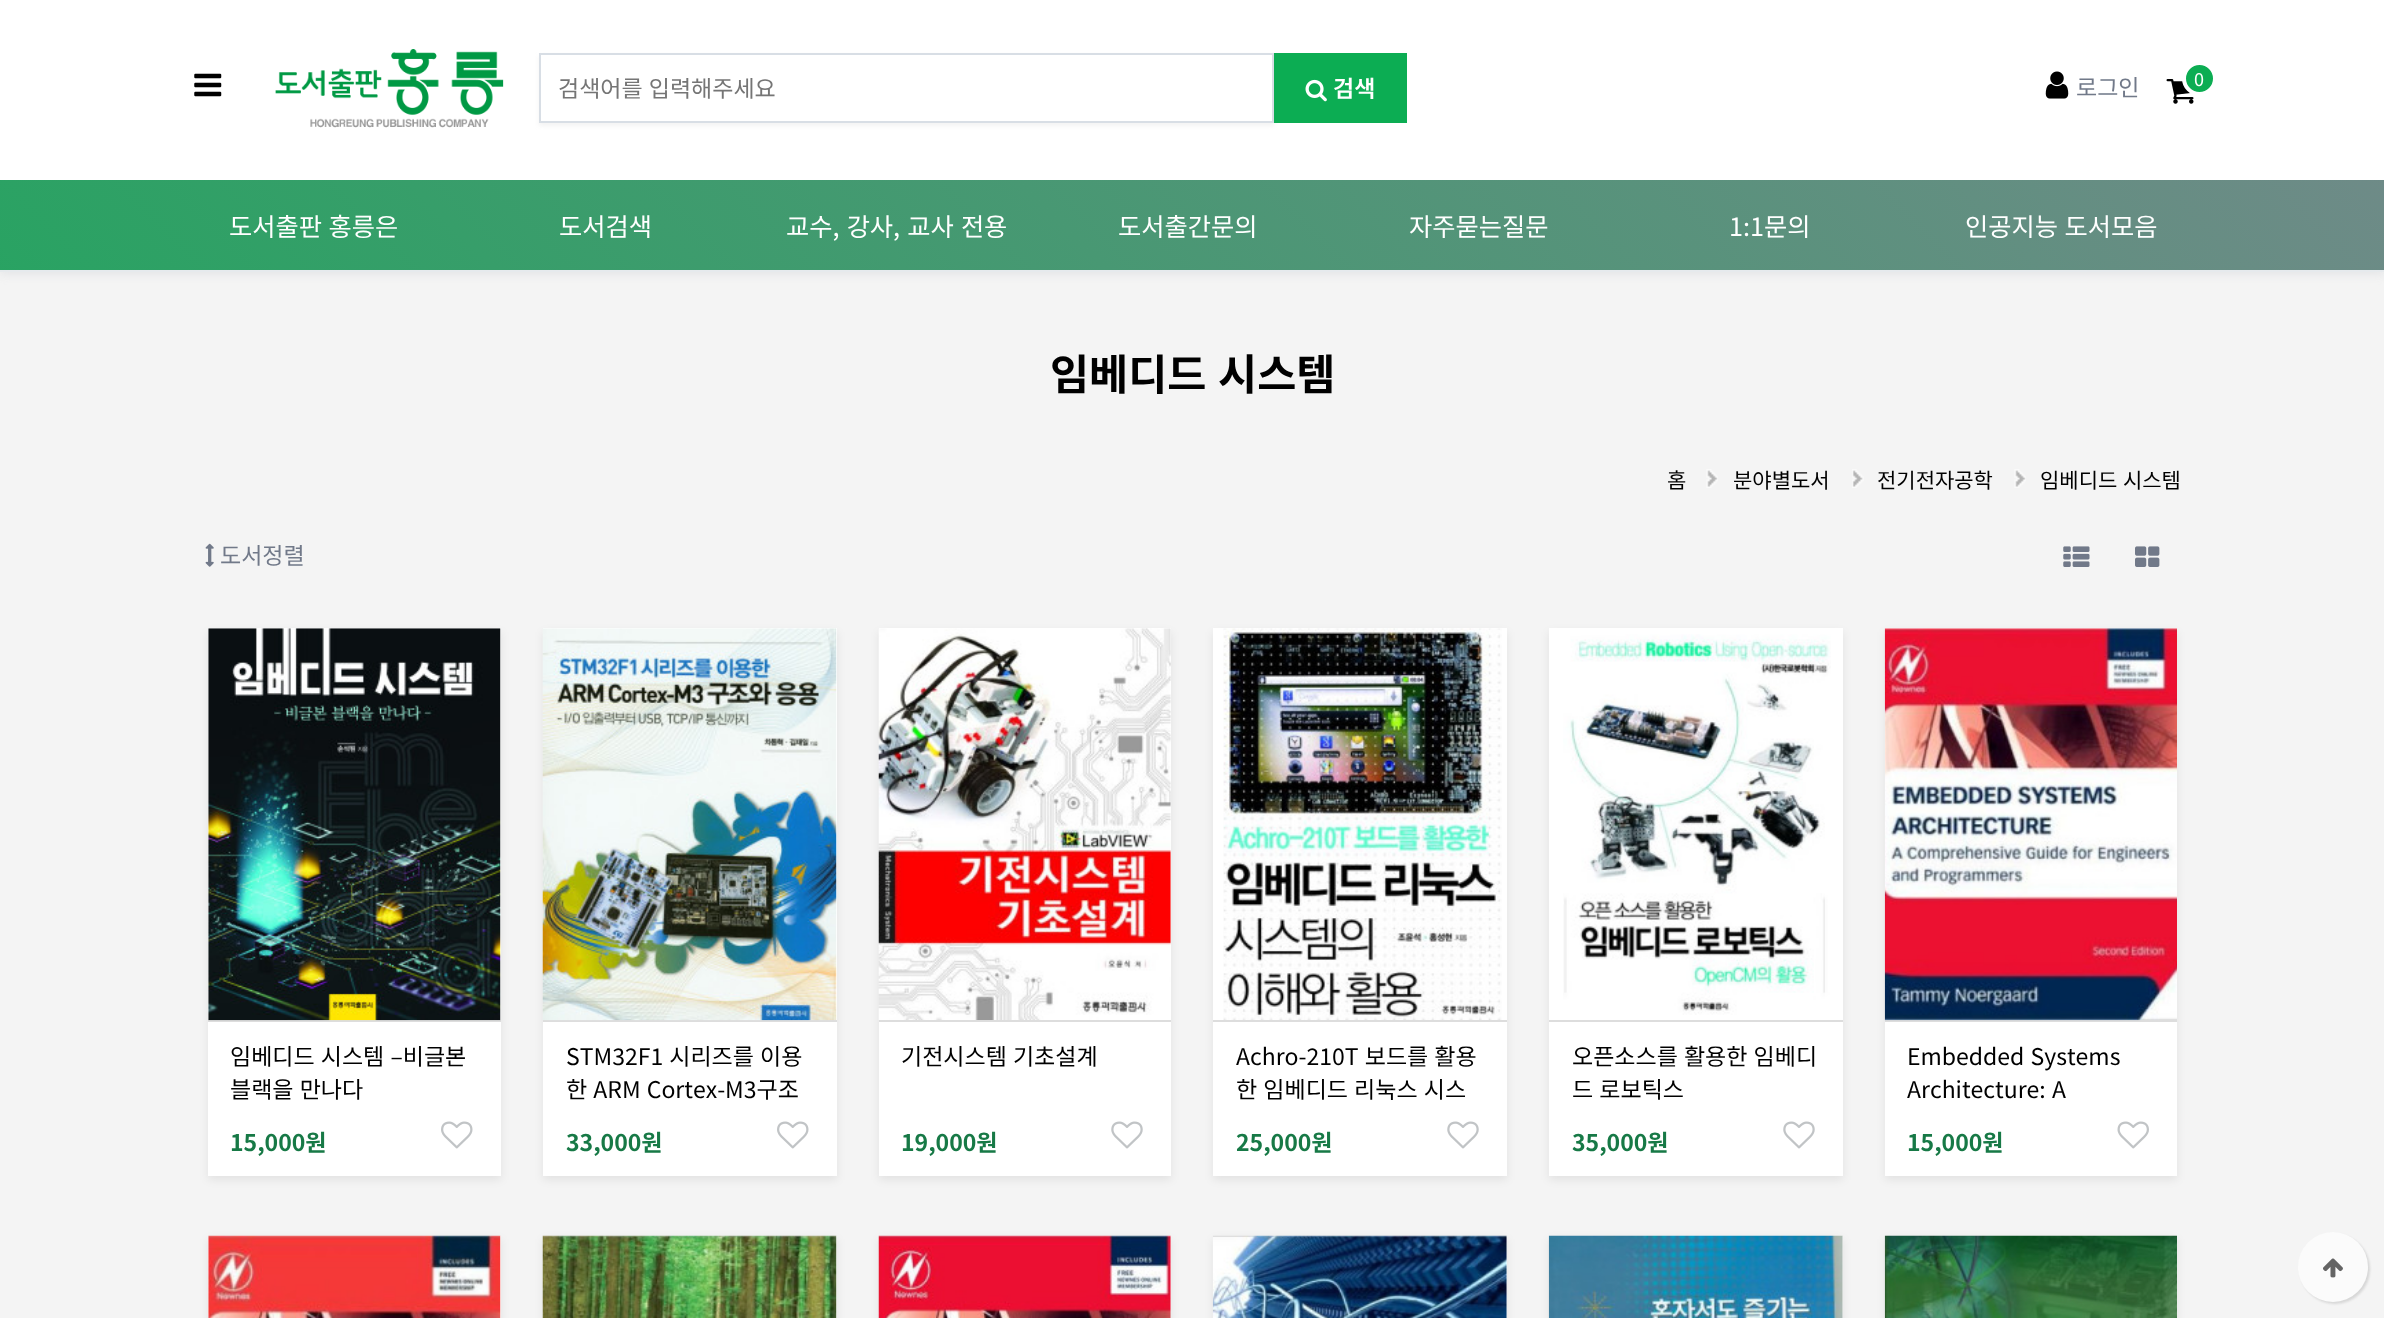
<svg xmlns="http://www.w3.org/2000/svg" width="2384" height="1318">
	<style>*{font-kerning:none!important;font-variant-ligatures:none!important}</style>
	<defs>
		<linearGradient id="g1" gradientUnits="userSpaceOnUse" x1="2119" y1="-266" x2="266" y2="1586"><stop offset="0" stop-color="#73898A" /><stop offset="1" stop-color="#0CAD53" /></linearGradient>
	</defs>
	<rect width="100%" height="100%" fill="#F4F4F4" />
	<rect x="0" y="4" width="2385" height="271" fill="#E5E6E8" filter="blur(4.5px)" />
	<rect x="0" y="0" width="2384" height="180" fill="#FFFFFF" />
	<rect x="0" y="270" width="2384" height="2" fill="#E6EAED" />
	<image x="275" y="49" width="229" height="79" href="assets/img1.png" />
	<rect x="539" y="56" width="735" height="70" fill="#F3F3F3" filter="blur(2px)" />
	<rect x="540" y="54" width="733" height="68" fill="#FFFFFF" stroke="#D8DEE5" stroke-width="2" />
	<text x="558" y="97" word-spacing="1" font-family="Noto Sans KR" font-size="23" fill="#757575">검색어를 입력해주세요</text>
	<rect x="1274" y="53" width="133" height="70" fill="#0CAD53" />
	<image x="1305" y="79" width="22" height="23" href="assets/img2.png" />
	<text x="1333" y="97" font-family="Noto Sans KR" font-size="23" font-weight="600" fill="#FFFFFF">검색</text>
	<image x="194" y="73" width="28" height="24" href="assets/img3.png" />
	<image x="2045" y="71" width="24" height="28" href="assets/img4.png" />
	<text x="2076" y="96" font-family="Noto Sans KR" font-size="23" fill="#717989">로그인</text>
	<image x="2166" y="79" width="28" height="25" href="assets/img5.png" />
	<circle cx="2199.5" cy="78.5" r="15.5" fill="#0CAD53" stroke="#FFFFFF" stroke-width="4" />
	<text x="2194" y="86" font-family="Noto Sans KR" font-size="18" fill="#FFFFFF">0</text>
	<rect x="0" y="180" width="2384" height="90" fill="url(#g1)" />
	<g font-family="Noto Sans KR" font-size="25.25" fill="#FFFFFF">
		<text x="229" y="236" word-spacing="1">도서출판 홍릉은</text>
		<text x="559" y="236">도서검색</text>
		<text x="786" y="236" word-spacing="1.5">교수, 강사, 교사 전용</text>
		<text x="1118" y="236">도서출간문의</text>
		<text x="1409" y="236">자주묻는질문</text>
		<text x="1729" y="236">1:1문의</text>
		<text x="1965" y="236" word-spacing="1">인공지능 도서모음</text>
	</g>
	<text x="1050" y="390" word-spacing="2" font-family="Noto Sans KR" font-size="42.5" font-weight="700" fill="#000000">임베디드 시스템</text>
	<text x="1667" y="488" font-family="Noto Sans KR" font-size="21" fill="#000000">홈</text>
	<image x="1706" y="469" width="12" height="19" href="assets/img6.png" />
	<text x="1733" y="488" font-family="Noto Sans KR" font-size="21" fill="#000000">분야별도서</text>
	<image x="1852" y="469" width="12" height="19" href="assets/img7.png" />
	<text x="1877" y="488" font-family="Noto Sans KR" font-size="21" fill="#000000">전기전자공학</text>
	<image x="2014" y="469" width="12" height="19" href="assets/img6.png" />
	<text x="2040" y="488" word-spacing="1" font-family="Noto Sans KR" font-size="21" fill="#000000">임베디드 시스템</text>
	<image x="205" y="543" width="9" height="24" href="assets/img8.png" />
	<text x="220" y="564" font-family="Noto Sans KR" font-size="23" fill="#717989">도서정렬</text>
	<image x="2063" y="546" width="27" height="21" href="assets/img9.png" />
	<image x="2135" y="546" width="25" height="21" href="assets/img10.png" />
	<rect x="208" y="632" width="293" height="548" fill="#000000" fill-opacity="0.07" filter="blur(4.5px)" />
	<rect x="208" y="628" width="293" height="548" fill="#FFFFFF" />
	<rect x="208" y="1020" width="293" height="2" fill="#DDDDDD" />
	<image x="208" y="628" width="293" height="393" href="assets/img11.png" />
	<g font-family="Noto Sans KR" font-size="23" fill="#000000">
		<text x="230" y="1065" word-spacing="1">임베디드 시스템 –비글본</text>
		<text x="230" y="1098" word-spacing="1">블랙을 만나다</text>
	</g>
	<text x="230" y="1151" font-family="Noto Sans KR" font-size="23" font-weight="700" fill="#177946">15,000원</text>
	<image x="441" y="1121" width="32" height="28" href="assets/img12.png" />
	<rect x="543" y="632" width="294" height="548" fill="#000000" fill-opacity="0.07" filter="blur(4.5px)" />
	<rect x="543" y="628" width="294" height="548" fill="#FFFFFF" />
	<rect x="543" y="1020" width="294" height="2" fill="#DDDDDD" />
	<image x="542" y="628" width="295" height="393" href="assets/img13.png" />
	<g font-family="Noto Sans KR" font-size="23" fill="#000000">
		<text x="566" y="1065" word-spacing="1">STM32F1 시리즈를 이용</text>
		<text x="566" y="1098" word-spacing="1">한 ARM Cortex-M3구조</text>
	</g>
	<text x="566" y="1151" font-family="Noto Sans KR" font-size="23" font-weight="700" fill="#177946">33,000원</text>
	<image x="777" y="1121" width="32" height="28" href="assets/img12.png" />
	<rect x="879" y="632" width="292" height="548" fill="#000000" fill-opacity="0.07" filter="blur(4.5px)" />
	<rect x="879" y="628" width="292" height="548" fill="#FFFFFF" />
	<image x="878" y="628" width="293" height="392" href="assets/img14.png" />
	<rect x="879" y="1020" width="292" height="2" fill="#DDDDDD" />
	<text x="901" y="1065" word-spacing="1" font-family="Noto Sans KR" font-size="23" fill="#000000">기전시스템 기초설계</text>
	<text x="901" y="1151" font-family="Noto Sans KR" font-size="23" font-weight="700" fill="#177946">19,000원</text>
	<image x="1111" y="1121" width="32" height="28" href="assets/img15.png" />
	<rect x="1213" y="632" width="294" height="548" fill="#000000" fill-opacity="0.07" filter="blur(4.5px)" />
	<rect x="1213" y="628" width="294" height="548" fill="#FFFFFF" />
	<image x="1223" y="628" width="279" height="392" href="assets/img16.png" />
	<rect x="1213" y="1020" width="294" height="2" fill="#DDDDDD" />
	<g font-family="Noto Sans KR" font-size="23" fill="#000000">
		<text x="1236" y="1065" word-spacing="1">Achro-210T 보드를 활용</text>
		<text x="1236" y="1098" word-spacing="1">한 임베디드 리눅스 시스</text>
	</g>
	<text x="1236" y="1151" font-family="Noto Sans KR" font-size="23" font-weight="700" fill="#177946">25,000원</text>
	<image x="1447" y="1121" width="32" height="28" href="assets/img15.png" />
	<rect x="1549" y="632" width="294" height="548" fill="#000000" fill-opacity="0.07" filter="blur(4.5px)" />
	<rect x="1549" y="628" width="294" height="548" fill="#FFFFFF" />
	<image x="1563" y="634" width="268" height="381" href="assets/img17.png" />
	<rect x="1549" y="1020" width="294" height="2" fill="#DDDDDD" />
	<g font-family="Noto Sans KR" font-size="23" fill="#000000">
		<text x="1572" y="1065" word-spacing="1">오픈소스를 활용한 임베디</text>
		<text x="1572" y="1098" word-spacing="1">드 로보틱스</text>
	</g>
	<text x="1572" y="1151" font-family="Noto Sans KR" font-size="23" font-weight="700" fill="#177946">35,000원</text>
	<image x="1783" y="1121" width="32" height="28" href="assets/img18.png" />
	<rect x="1885" y="632" width="292" height="548" fill="#000000" fill-opacity="0.07" filter="blur(4.5px)" />
	<rect x="1885" y="628" width="292" height="548" fill="#FFFFFF" />
	<rect x="1885" y="1020" width="292" height="2" fill="#DDDDDD" />
	<image x="1884" y="628" width="293" height="393" href="assets/img19.png" />
	<g font-family="Noto Sans KR" font-size="23" fill="#000000">
		<text x="1907" y="1065" word-spacing="1">Embedded Systems</text>
		<text x="1907" y="1098" word-spacing="1">Architecture: A</text>
	</g>
	<text x="1907" y="1151" font-family="Noto Sans KR" font-size="23" font-weight="700" fill="#177946">15,000원</text>
	<image x="2117" y="1121" width="32" height="28" href="assets/img20.png" />
	<rect x="208" y="1239" width="293" height="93" fill="#000000" fill-opacity="0.07" filter="blur(4.5px)" />
	<rect x="208" y="1236" width="293" height="82" fill="#FFFFFF" />
	<image x="208" y="1235" width="293" height="83" href="assets/img21.png" />
	<rect x="543" y="1239" width="294" height="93" fill="#000000" fill-opacity="0.07" filter="blur(4.5px)" />
	<rect x="836" y="1236" width="1" height="82" fill="#FFFFFF" />
	<image x="542" y="1235" width="295" height="83" href="assets/img22.png" />
	<rect x="879" y="1239" width="292" height="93" fill="#000000" fill-opacity="0.07" filter="blur(4.5px)" />
	<rect x="1170" y="1236" width="1" height="82" fill="#FFFFFF" />
	<image x="878" y="1235" width="293" height="83" href="assets/img23.png" />
	<rect x="1213" y="1239" width="294" height="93" fill="#000000" fill-opacity="0.07" filter="blur(4.5px)" />
	<rect x="1506" y="1236" width="1" height="82" fill="#FFFFFF" />
	<image x="1212" y="1235" width="295" height="83" href="assets/img24.png" />
	<rect x="1549" y="1239" width="294" height="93" fill="#000000" fill-opacity="0.07" filter="blur(4.5px)" />
	<rect x="1842" y="1236" width="1" height="82" fill="#FFFFFF" />
	<image x="1548" y="1235" width="295" height="83" href="assets/img25.png" />
	<rect x="1885" y="1239" width="292" height="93" fill="#000000" fill-opacity="0.07" filter="blur(4.5px)" />
	<image x="1884" y="1235" width="293" height="83" href="assets/img26.png" />
	<rect x="2300" y="1234" width="70" height="70" rx="35" fill="#626262" fill-opacity="0.2" filter="blur(1px)" />
	<circle cx="2333" cy="1267" r="35" fill="#FBFBFB" />
	<image x="2323" y="1258" width="20" height="20" href="assets/img27.png" />
</svg>
